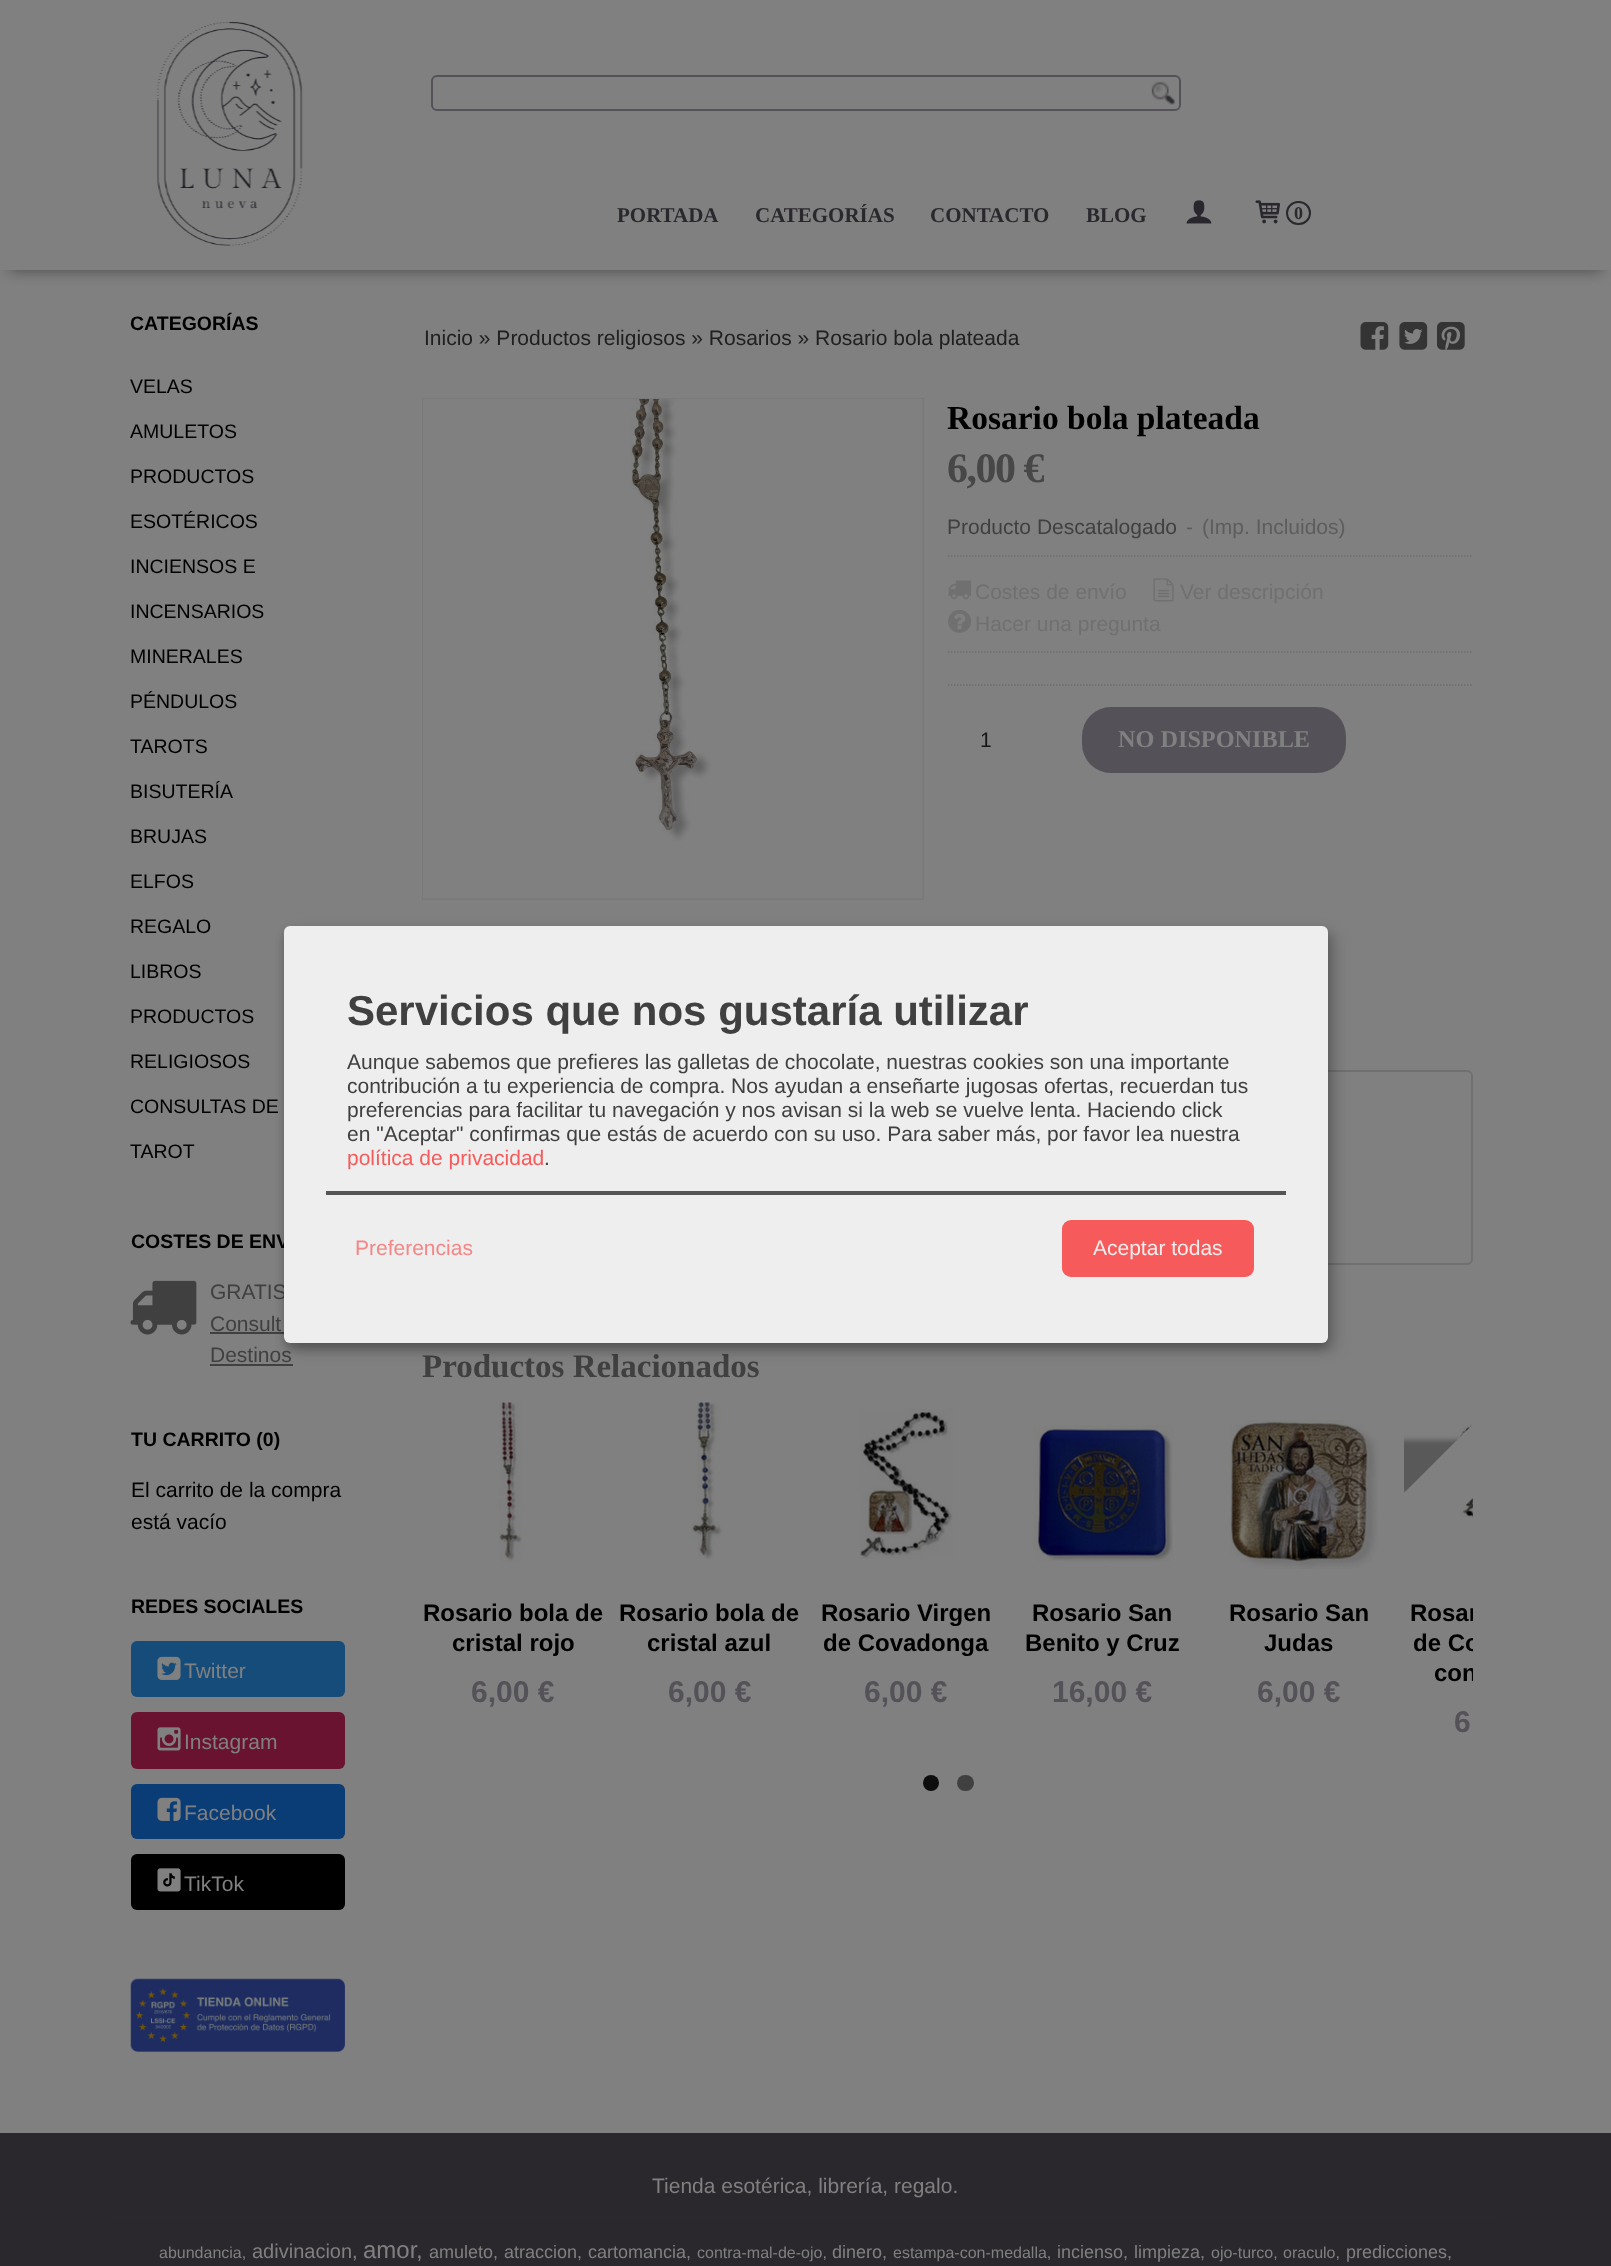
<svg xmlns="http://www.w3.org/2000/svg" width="1611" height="2266">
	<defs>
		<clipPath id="clip1"><rect x="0" y="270" width="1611" height="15" /></clipPath>
		<clipPath id="clip2"><rect x="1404" y="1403" width="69" height="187" /></clipPath>
		<clipPath id="clip3"><rect x="1404" y="1403" width="69" height="187" /></clipPath>
		<clipPath id="clip4"><rect x="1404" y="1584" width="69" height="173" /></clipPath>
	</defs>
	<rect width="100%" height="100%" fill="#808080" />
	<g clip-path="url(#clip1)">
		<rect x="9" y="18" width="1593" height="252" fill="#474747" filter="blur(7.5px)" />
	</g>
	<image x="156" y="22" width="147" height="224" href="assets/img1.png" />
	<rect x="432" y="76" width="748" height="34" rx="5" fill="none" stroke="#555158" stroke-width="2" />
	<image x="1151" y="81" width="24" height="24" href="assets/img2.png" />
	<g font-family="Liberation Serif" font-size="21" font-weight="700" fill="#2A272D">
		<text x="617" y="222">PORTADA</text>
		<text x="755" y="222">CATEGORÍAS</text>
		<text x="930" y="222">CONTACTO</text>
		<text x="1086" y="222">BLOG</text>
	</g>
	<image x="1186" y="200" width="26" height="24" href="assets/img3.png" />
	<image x="1255" y="200" width="25" height="24" href="assets/img4.png" />
	<rect x="1287" y="202" width="23" height="22" rx="11" fill="none" stroke="#2A272D" stroke-width="2" />
	<text x="1294" y="219" font-family="Liberation Serif" font-size="18" font-weight="700" fill="#2A272D">0</text>
	<text x="130" y="330" font-family="Liberation Sans" font-size="19.5" font-weight="700" fill="#000000">CATEGORÍAS</text>
	<g font-family="Liberation Sans" font-size="19.5" fill="#000000">
		<text x="130" y="393">VELAS</text>
		<text x="130" y="438">AMULETOS</text>
		<text x="130" y="483">PRODUCTOS</text>
		<text x="130" y="528">ESOTÉRICOS</text>
		<text x="130" y="573">INCIENSOS E</text>
		<text x="130" y="618">INCENSARIOS</text>
		<text x="130" y="663">MINERALES</text>
		<text x="130" y="708">PÉNDULOS</text>
		<text x="130" y="753">TAROTS</text>
		<text x="130" y="798">BISUTERÍA</text>
		<text x="130" y="843">BRUJAS</text>
		<text x="130" y="888">ELFOS</text>
		<text x="130" y="933">REGALO</text>
		<text x="130" y="978">LIBROS</text>
		<text x="130" y="1023">PRODUCTOS</text>
		<text x="130" y="1068">RELIGIOSOS</text>
		<text x="130" y="1113">CONSULTAS DE</text>
		<text x="130" y="1158">TAROT</text>
	</g>
	<text x="131" y="1248" font-family="Liberation Sans" font-size="19.5" font-weight="700" fill="#000000">COSTES DE ENV</text>
	<image x="130" y="1280" width="67" height="55" href="assets/img5.png" />
	<g font-family="Liberation Sans" font-size="21" fill="#404040">
		<text x="210" y="1299">GRATIS</text>
		<text x="210" y="1331">Consult</text>
	</g>
	<rect x="210" y="1332" width="74" height="2" fill="#404040" />
	<text x="210" y="1362" font-family="Liberation Sans" font-size="21" fill="#404040">Destinos</text>
	<rect x="210" y="1364" width="83" height="2" fill="#404040" />
	<text x="131" y="1446" font-family="Liberation Sans" font-size="19.5" font-weight="700" fill="#000000">TU CARRITO (0)</text>
	<g font-family="Liberation Sans" font-size="21" fill="#000000">
		<text x="131" y="1497">El carrito de la compra</text>
		<text x="131" y="1529">está vacío</text>
	</g>
	<text x="131" y="1613" font-family="Liberation Sans" font-size="19.5" font-weight="700" fill="#000000">REDES SOCIALES</text>
	<rect x="131" y="1641" width="214" height="56" rx="6" fill="#164C79" />
	<image x="157" y="1656" width="24" height="24" href="assets/img6.png" />
	<text x="184" y="1678" font-family="Liberation Sans" font-size="21" fill="#808080">Twitter</text>
	<rect x="131" y="1712" width="214" height="57" rx="6" fill="#691330" />
	<image x="157" y="1727" width="24" height="24" href="assets/img7.png" />
	<text x="184" y="1749" font-family="Liberation Sans" font-size="21" fill="#808080">Instagram</text>
	<rect x="131" y="1784" width="214" height="55" rx="6" fill="#0A3C76" />
	<image x="157" y="1797" width="24" height="24" href="assets/img8.png" />
	<text x="184" y="1820" font-family="Liberation Sans" font-size="21" fill="#808080">Facebook</text>
	<rect x="131" y="1854" width="214" height="56" rx="6" fill="#000000" />
	<image x="157" y="1868" width="24" height="24" href="assets/img9.png" />
	<text x="184" y="1891" font-family="Liberation Sans" font-size="21" fill="#808080">TikTok</text>
	<image x="130" y="1978" width="215" height="74" href="assets/img10.png" />
	<text x="424" y="345" font-family="Liberation Sans" font-size="21" fill="#202020">Inicio » Productos religiosos » Rosarios » Rosario bola plateada</text>
	<image x="1360" y="322" width="29" height="28" href="assets/img11.png" />
	<image x="1399" y="322" width="29" height="28" href="assets/img12.png" />
	<image x="1436" y="322" width="29" height="28" href="assets/img13.png" />
	<rect x="423" y="399" width="500" height="500" fill="none" stroke="#797979" stroke-width="2" />
	<image x="423" y="399" width="500" height="500" href="assets/img14.png" />
	<text x="947" y="429" font-family="Liberation Serif" font-size="33.5" font-weight="700" fill="#000000">Rosario bola plateada</text>
	<text x="947" y="482" font-family="Liberation Serif" font-size="42" font-weight="700" letter-spacing="-1.5" fill="#474747">6,00 €</text>
	<text x="947" y="534" font-family="Liberation Sans" font-size="21" fill="#404040">Producto Descatalogado</text>
	<g font-family="Liberation Sans" font-size="21" fill="#5D5D5D">
		<text x="1186" y="534">-</text>
		<text x="1202" y="534">(Imp. Incluidos)</text>
	</g>
	<path d="M948 556H1473" fill="none" stroke="#6D6D6D" stroke-width="1.5" stroke-dasharray="1.5 1.5" />
	<image x="948" y="580" width="23" height="20" href="assets/img15.png" />
	<text x="975" y="599" font-family="Liberation Sans" font-size="21" fill="#707070">Costes de envío</text>
	<image x="1153" y="578" width="21" height="24" href="assets/img16.png" />
	<text x="1180" y="599" font-family="Liberation Sans" font-size="21" fill="#707070">Ver descripción</text>
	<image x="948" y="609" width="23" height="24" href="assets/img17.png" />
	<text x="975" y="631" font-family="Liberation Sans" font-size="21" fill="#707070">Hacer una pregunta</text>
	<path d="M948 652H1473" fill="none" stroke="#6D6D6D" stroke-width="1.5" stroke-dasharray="1.5 1.5" />
	<path d="M948 685H1473" fill="none" stroke="#6D6D6D" stroke-width="1.5" stroke-dasharray="1.5 1.5" />
	<text x="980" y="747" font-family="Liberation Sans" font-size="21" fill="#151515">1</text>
	<rect x="1082" y="707" width="264" height="66" rx="29" fill="#555158" />
	<text x="1118" y="747" font-family="Liberation Serif" font-size="24.25" font-weight="700" fill="#808080">NO DISPONIBLE</text>
	<rect x="423" y="1071" width="1049" height="193" rx="5" fill="none" stroke="#707070" stroke-width="2" />
	<text x="422" y="1377" font-family="Liberation Serif" font-size="33" font-weight="700" fill="#404040">Productos Relacionados</text>
	<image x="499" y="1402" width="23" height="160" href="assets/img18.png" />
	<g font-family="Liberation Sans" font-size="24" font-weight="700" fill="#000000">
		<text x="423" y="1621">Rosario bola de</text>
		<text x="452" y="1651">cristal rojo</text>
	</g>
	<text x="471" y="1702" font-family="Liberation Sans" font-size="30" font-weight="700" fill="#555158">6,00 €</text>
	<image x="691" y="1402" width="31" height="157" href="assets/img19.png" />
	<g font-family="Liberation Sans" font-size="24" font-weight="700" fill="#000000">
		<text x="619" y="1621">Rosario bola de</text>
		<text x="647" y="1651">cristal azul</text>
	</g>
	<text x="668" y="1702" font-family="Liberation Sans" font-size="30" font-weight="700" fill="#555158">6,00 €</text>
	<image x="860" y="1409" width="93" height="150" href="assets/img20.png" />
	<g font-family="Liberation Sans" font-size="24" font-weight="700" fill="#000000">
		<text x="821" y="1621">Rosario Virgen</text>
		<text x="823" y="1651">de Covadonga</text>
	</g>
	<text x="864" y="1702" font-family="Liberation Sans" font-size="30" font-weight="700" fill="#555158">6,00 €</text>
	<image x="1033" y="1425" width="140" height="137" href="assets/img21.png" />
	<g font-family="Liberation Sans" font-size="24" font-weight="700" fill="#000000">
		<text x="1032" y="1621">Rosario San</text>
		<text x="1025" y="1651">Benito y Cruz</text>
	</g>
	<text x="1052" y="1702" font-family="Liberation Sans" font-size="30" font-weight="700" fill="#555158">16,00 €</text>
	<image x="1230" y="1420" width="149" height="149" href="assets/img22.png" />
	<g font-family="Liberation Sans" font-size="24" font-weight="700" fill="#000000">
		<text x="1229" y="1621">Rosario San</text>
		<text x="1264" y="1651">Judas</text>
	</g>
	<text x="1257" y="1702" font-family="Liberation Sans" font-size="30" font-weight="700" fill="#555158">6,00 €</text>
	<image x="1452" y="1424" width="21" height="94" href="assets/img23.png" />
	<g clip-path="url(#clip2)">
		<rect x="1329" y="1440" width="278" height="53" fill="#000000" fill-opacity="0.3" filter="blur(2.5px)" />
	</g>
	<g clip-path="url(#clip3)">
		<path d="M1352 1545L1548 1349L1585 1386L1389 1582Z" fill="#808080" />
	</g>
	<g clip-path="url(#clip4)">
		<g font-family="Liberation Sans" font-size="24" font-weight="700" fill="#000000">
			<text x="1410" y="1621">Rosar</text>
			<text x="1413" y="1651">de Co</text>
			<text x="1434" y="1681">con</text>
		</g>
	</g>
	<text x="1454" y="1732" font-family="Liberation Sans" font-size="30" font-weight="700" fill="#555158">6</text>
	<circle cx="931" cy="1783" r="8" fill="#0D0D0D" />
	<rect x="957" y="1775" width="17" height="16" rx="8" fill="#404040" />
	<rect x="0" y="2133" width="1611" height="133" fill="#2A272D" />
	<text x="652" y="2193" font-family="Liberation Sans" font-size="21" fill="#808080">Tienda esotérica, librería, regalo.</text>
	<path d="M111 2218H1500" fill="none" stroke="#2F2C31" stroke-width="1.5" stroke-dasharray="1.5 1.5" />
	<text x="159" y="2258" font-family="Liberation Sans" font-size="16" fill="#808080">abundancia,</text>
	<text x="252" y="2258" font-family="Liberation Sans" font-size="20" fill="#808080">adivinacion,</text>
	<g font-family="Liberation Sans" font-size="24" fill="#808080">
		<text x="363" y="2258">amor</text>
		<text x="416" y="2258">,</text>
	</g>
	<g font-family="Liberation Sans" font-size="18" fill="#808080">
		<text x="429" y="2258">amuleto,</text>
		<text x="504" y="2258">atraccion,</text>
		<text x="588" y="2258">cartomancia,</text>
	</g>
	<text x="697" y="2258" font-family="Liberation Sans" font-size="16" fill="#808080">contra-mal-de-ojo,</text>
	<text x="832" y="2258" font-family="Liberation Sans" font-size="18" fill="#808080">dinero,</text>
	<text x="893" y="2258" font-family="Liberation Sans" font-size="16" fill="#808080">estampa-con-medalla,</text>
	<g font-family="Liberation Sans" font-size="18" fill="#808080">
		<text x="1057" y="2258">incienso,</text>
		<text x="1134" y="2258">limpieza,</text>
	</g>
	<g font-family="Liberation Sans" font-size="16" fill="#808080">
		<text x="1211" y="2258">ojo-turco,</text>
		<text x="1283" y="2258">oraculo,</text>
	</g>
	<text x="1346" y="2258" font-family="Liberation Sans" font-size="18" fill="#808080">predicciones,</text>
	<rect x="291" y="933" width="1044" height="417" rx="6" fill="#000000" fill-opacity="0.19" filter="blur(7.5px)" />
	<rect x="284" y="932" width="1044" height="417" rx="6" fill="#000000" fill-opacity="0.2" filter="blur(4.5px)" />
	<rect x="284" y="926" width="1044" height="417" rx="6" fill="#EEEEEE" />
	<rect x="326" y="1191" width="960" height="4" fill="#555555" />
	<text x="347" y="1025" font-family="Liberation Sans" font-size="42" font-weight="700" fill="#404040">Servicios que nos gustaría utilizar</text>
	<g font-family="Liberation Sans" font-size="21" fill="#404040">
		<text x="347" y="1069">Aunque sabemos que prefieres las galletas de chocolate, nuestras cookies son una importante</text>
		<text x="347" y="1093">contribución a tu experiencia de compra. Nos ayudan a enseñarte jugosas ofertas, recuerdan tus</text>
		<text x="347" y="1117">preferencias para facilitar tu navegación y nos avisan si la web se vuelve lenta. Haciendo click</text>
		<text x="347" y="1141">en "Aceptar" confirmas que estás de acuerdo con su uso. Para saber más, por favor lea nuestra</text>
	</g>
	<text x="347" y="1165" font-family="Liberation Sans" font-size="21" fill="#F75A5A">política de privacidad</text>
	<text x="544" y="1165" font-family="Liberation Sans" font-size="21" fill="#404040">.</text>
	<text x="355" y="1255" font-family="Liberation Sans" font-size="21" fill="#F48686">Preferencias</text>
	<rect x="1062" y="1220" width="192" height="57" rx="9" fill="#F75A5A" />
	<text x="1093" y="1255" font-family="Liberation Sans" font-size="21" fill="#EEEEEE">Aceptar todas</text>
</svg>
